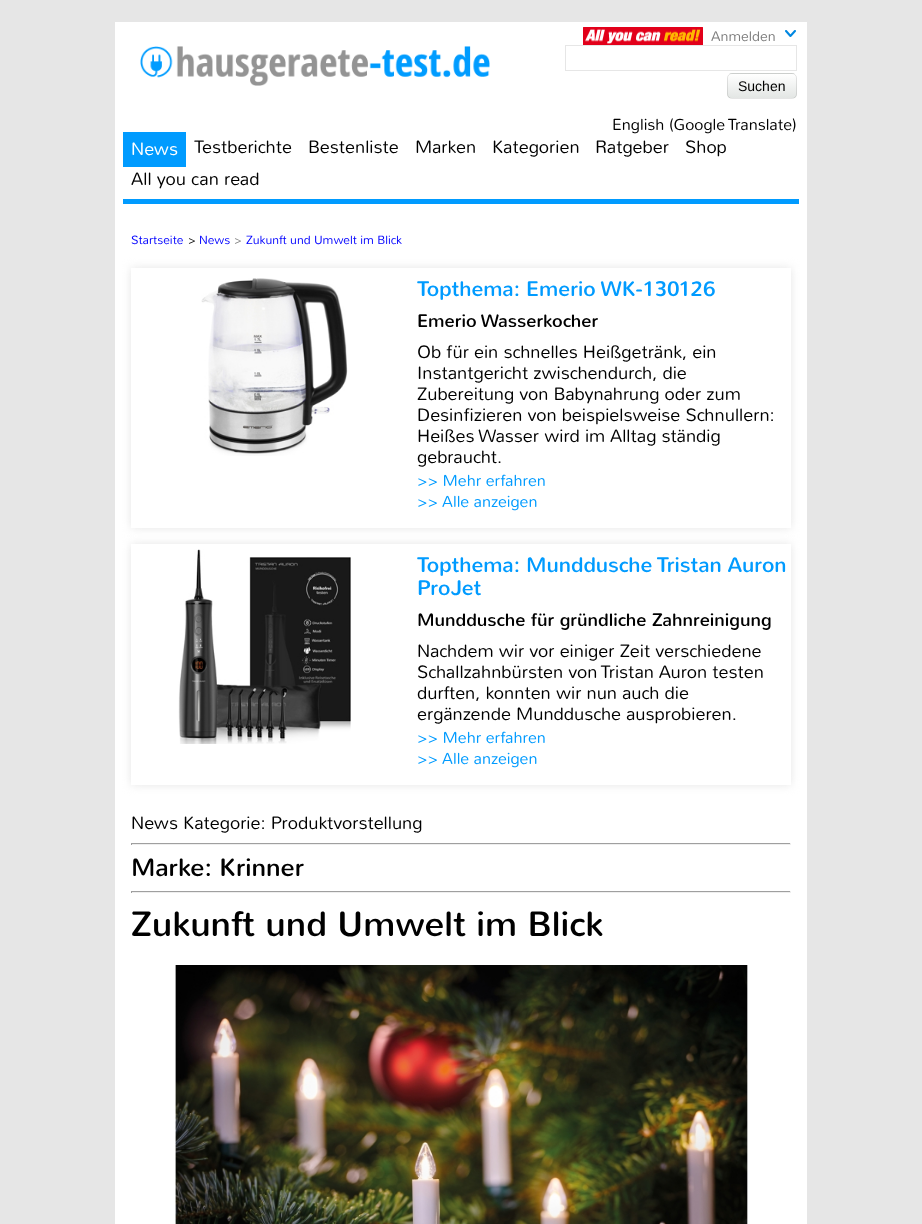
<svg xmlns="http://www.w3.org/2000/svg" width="922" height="1224">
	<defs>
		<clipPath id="clip1"><rect x="727" y="73" width="70" height="26" rx="5" /></clipPath>
		<linearGradient id="g1" gradientUnits="userSpaceOnUse" x1="762" y1="50" x2="762" y2="74"><stop offset="0" stop-color="#FFFFFF" /><stop offset="1" stop-color="#E3E6E4" /></linearGradient>
		<linearGradient id="g2" gradientUnits="userSpaceOnUse" x1="762" y1="74" x2="762" y2="98"><stop offset="0" stop-color="#FFFFFF" /><stop offset="1" stop-color="#E3E6E4" /></linearGradient>
		<clipPath id="clip2"><path d="M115 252H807V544H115ZM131 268H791V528H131Z" clip-rule="evenodd" /></clipPath>
		<clipPath id="clip3"><path d="M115 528H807V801H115ZM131 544H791V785H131Z" clip-rule="evenodd" /></clipPath>
	</defs>
	<rect width="100%" height="100%" fill="#E6E6E6" />
	<rect x="115" y="22" width="692" height="1202" fill="#FFFFFF" />
	<image x="583" y="27" width="120" height="18" href="assets/img1.png" />
	<text x="711" y="41" font-family="Nunito" font-size="14" font-weight="300" fill="#808080">Anmelden</text>
	<image x="785" y="30" width="11" height="7" href="assets/img2.png" />
	<image x="140" y="46" width="350" height="40" href="assets/img3.png" />
	<rect x="565.5" y="45.5" width="231" height="25" fill="none" stroke="#E6E6E6" />
	<g clip-path="url(#clip1)">
		<rect x="727" y="73" width="70" height="1" fill="url(#g1)" />
		<rect x="727" y="74" width="70" height="24" fill="url(#g2)" />
	</g>
	<rect x="727.5" y="73.5" width="69" height="25" rx="4.5" fill="none" stroke="#000000" stroke-opacity="0.1" />
	<text x="738" y="91" font-family="Liberation Sans" font-size="14" fill="#000000">Suchen</text>
	<text x="612" y="130" font-family="Nunito" font-size="16" font-weight="300" fill="#000000">English (Google Translate)</text>
	<rect x="123" y="132" width="63" height="35" fill="#009BFF" />
	<text x="131" y="155" font-family="Nunito" font-size="18" font-weight="300" fill="#FFFFFF">News</text>
	<g font-family="Nunito" font-size="18" font-weight="300" fill="#000000">
		<text x="194" y="153">Testberichte</text>
		<text x="308" y="153">Bestenliste</text>
		<text x="415" y="153">Marken</text>
		<text x="492" y="153">Kategorien</text>
		<text x="595" y="153">Ratgeber</text>
		<text x="685" y="153">Shop</text>
		<text x="131" y="185">All you can read</text>
	</g>
	<rect x="123" y="199" width="676" height="5" fill="#009BFF" />
	<text x="131" y="244" font-family="Nunito" font-size="12" font-weight="300" fill="#0000FF">Startseite</text>
	<text x="188" y="244" font-family="Nunito" font-size="12" font-weight="300" fill="#000000">&gt;</text>
	<text x="199" y="244" font-family="Nunito" font-size="12" font-weight="300" fill="#0000FF">News</text>
	<text x="234" y="244" font-family="Nunito" font-size="12" font-weight="300" fill="#808080">&gt;</text>
	<text x="246" y="244" font-family="Nunito" font-size="12" font-weight="300" fill="#0000FF">Zukunft und Umwelt im Blick</text>
	<g clip-path="url(#clip2)">
		<rect x="131" y="268" width="660" height="260" fill="#E6E6E6" filter="blur(5px)" />
	</g>
	<image x="201" y="278" width="147" height="178" href="assets/img4.png" />
	<text x="417" y="296" font-family="Nunito" font-size="21" fill="#009BFF">Topthema: Emerio WK-130126</text>
	<text x="417" y="327" font-family="Nunito" font-size="18" fill="#000000">Emerio Wasserkocher</text>
	<g font-family="Nunito" font-size="18" font-weight="300" fill="#000000">
		<text x="417" y="358">Ob für ein schnelles Heißgetränk, ein</text>
		<text x="417" y="379">Instantgericht zwischendurch, die</text>
		<text x="417" y="400">Zubereitung von Babynahrung oder zum</text>
		<text x="417" y="421">Desinfizieren von beispielsweise Schnullern:</text>
		<text x="417" y="442">Heißes Wasser wird im Alltag ständig</text>
		<text x="417" y="463">gebraucht.</text>
	</g>
	<g font-family="Nunito" font-size="16" font-weight="300" fill="#009BFF">
		<text x="417" y="486">&gt;&gt; Mehr erfahren</text>
		<text x="417" y="507">&gt;&gt; Alle anzeigen</text>
	</g>
	<g clip-path="url(#clip3)">
		<rect x="131" y="544" width="660" height="241" fill="#E6E6E6" filter="blur(5px)" />
	</g>
	<image x="178" y="549" width="173" height="195" href="assets/img5.png" />
	<g font-family="Nunito" font-size="21" fill="#009BFF">
		<text x="417" y="572">Topthema: Munddusche Tristan Auron</text>
		<text x="417" y="595">ProJet</text>
	</g>
	<text x="417" y="626" font-family="Nunito" font-size="18" fill="#000000">Munddusche für gründliche Zahnreinigung</text>
	<g font-family="Nunito" font-size="18" font-weight="300" fill="#000000">
		<text x="417" y="657">Nachdem wir vor einiger Zeit verschiedene</text>
		<text x="417" y="678">Schallzahnbürsten von Tristan Auron testen</text>
		<text x="417" y="699">durften, konnten wir nun auch die</text>
		<text x="417" y="720">ergänzende Munddusche ausprobieren.</text>
	</g>
	<g font-family="Nunito" font-size="16" font-weight="300" fill="#009BFF">
		<text x="417" y="743">&gt;&gt; Mehr erfahren</text>
		<text x="417" y="764">&gt;&gt; Alle anzeigen</text>
	</g>
	<text x="131" y="829" font-family="Nunito" font-size="18" font-weight="300" fill="#000000">News Kategorie: Produktvorstellung</text>
	<rect x="131" y="843" width="660" height="1" fill="#9F9F9F" />
	<rect x="790" y="843" width="1" height="2" fill="#EEEEEE" />
	<rect x="131" y="844" width="660" height="1" fill="#EEEEEE" />
	<rect x="131" y="843" width="1" height="2" fill="#9F9F9F" />
	<text x="131" y="876" font-family="Nunito" font-size="25" fill="#000000">Marke: Krinner</text>
	<rect x="131" y="891" width="660" height="1" fill="#9F9F9F" />
	<rect x="790" y="891" width="1" height="2" fill="#EEEEEE" />
	<rect x="131" y="892" width="660" height="1" fill="#EEEEEE" />
	<rect x="131" y="891" width="1" height="2" fill="#9F9F9F" />
	<text x="131" y="936" font-family="Nunito" font-size="35" fill="#000000">Zukunft und Umwelt im Blick</text>
	<image x="175" y="965" width="573" height="259" href="assets/img6.png" />
</svg>
